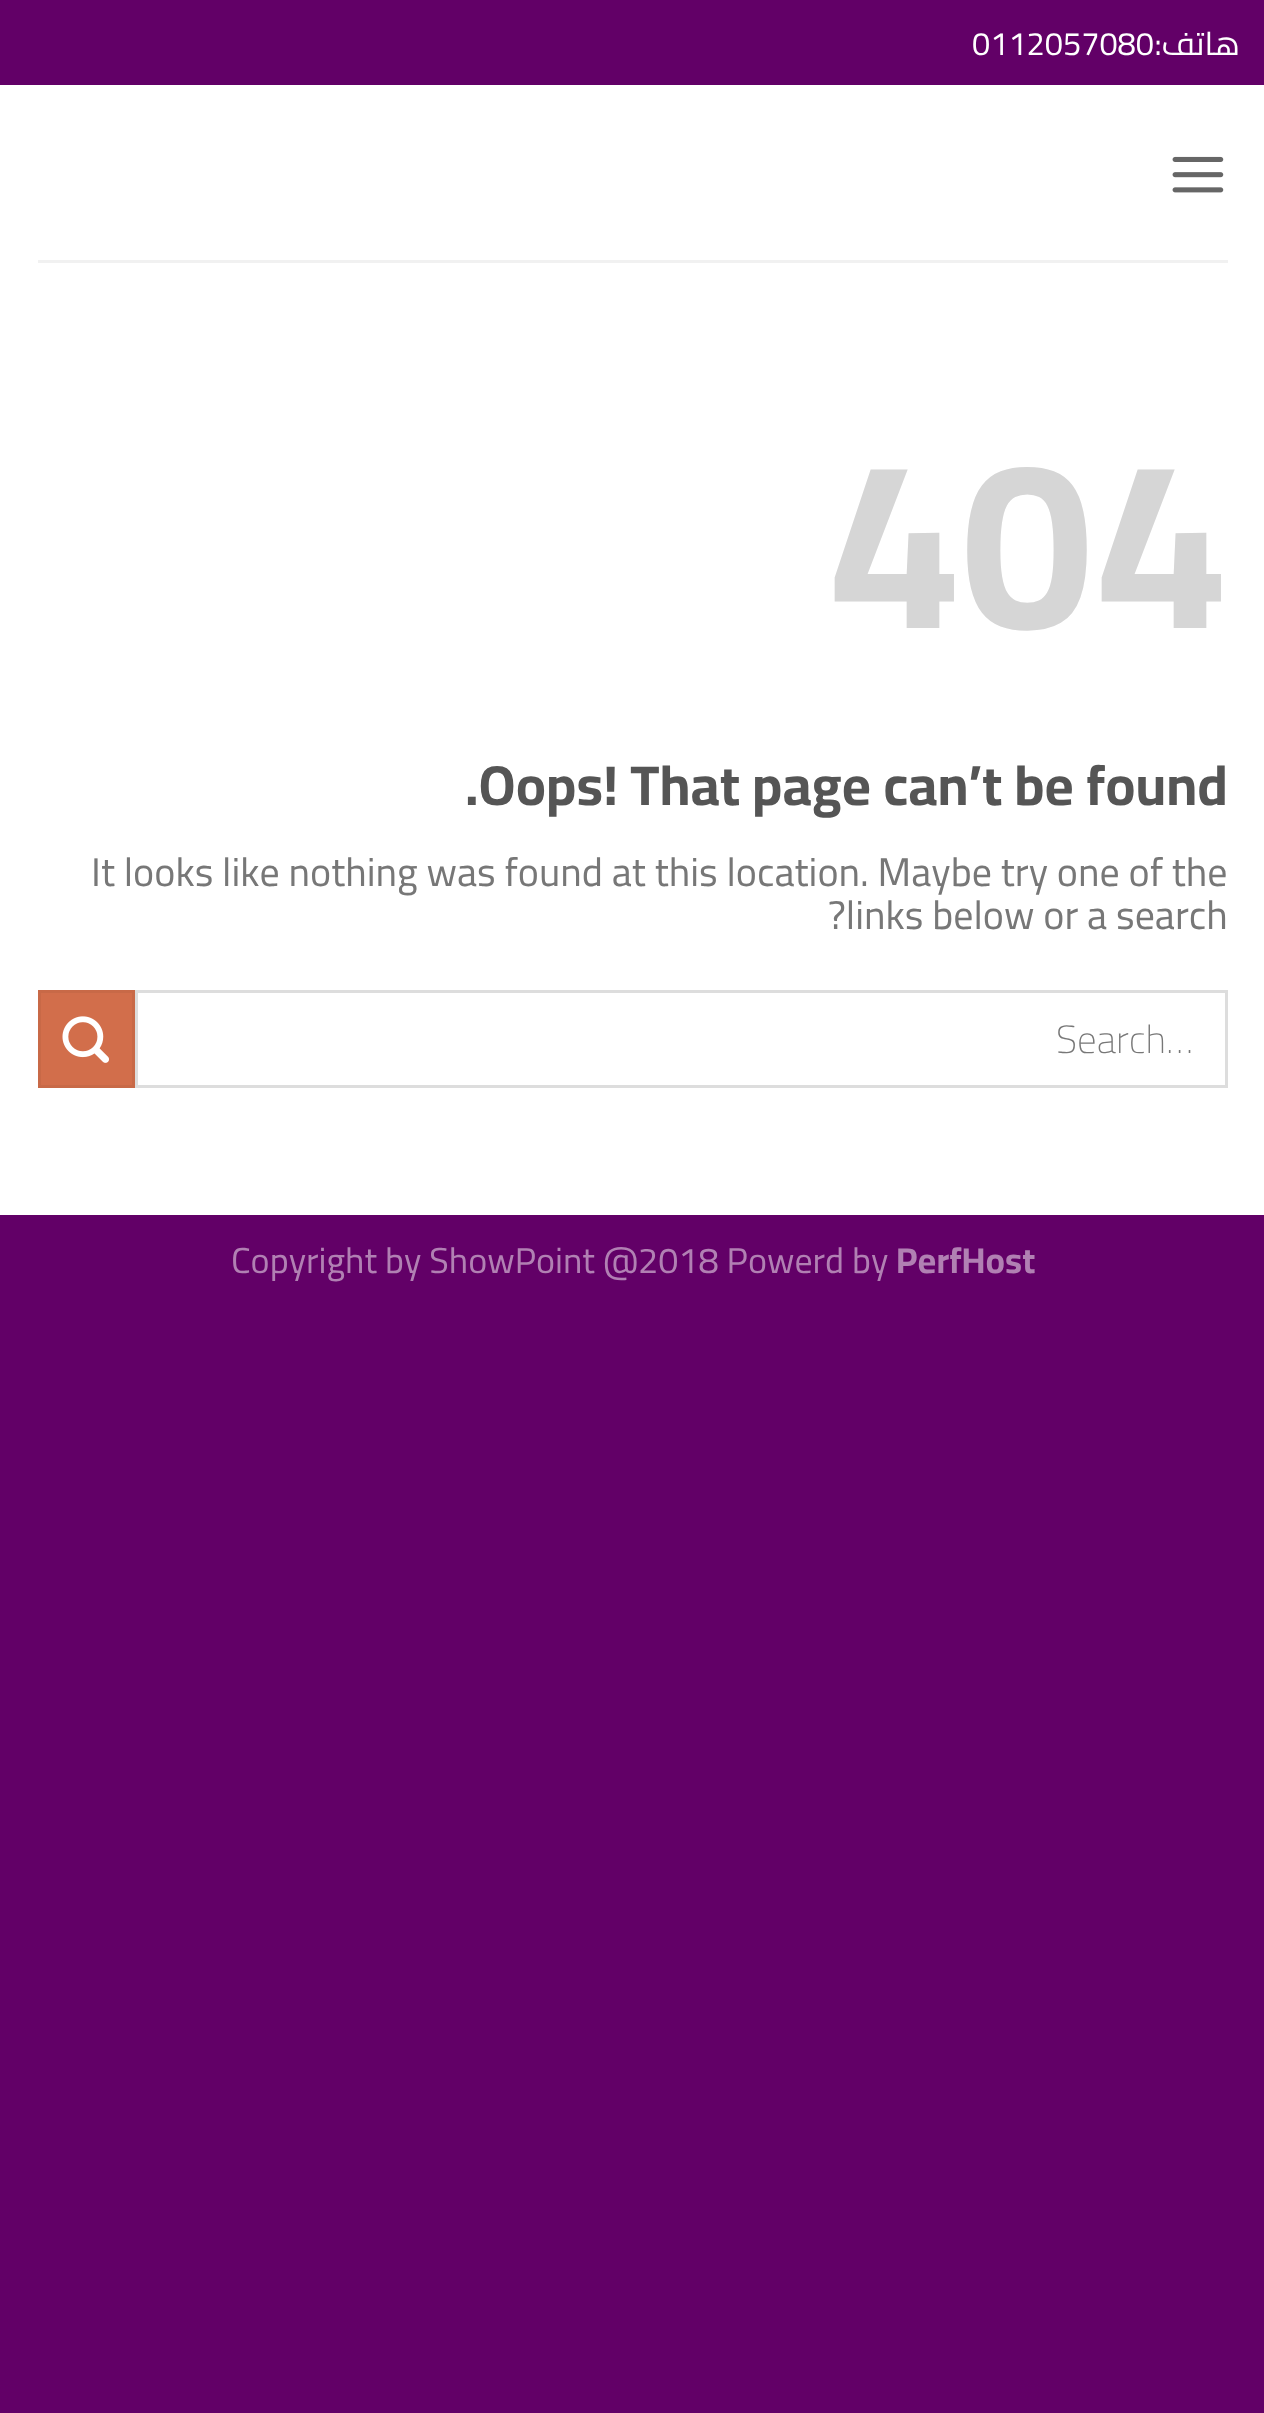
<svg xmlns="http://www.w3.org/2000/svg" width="1264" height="2413">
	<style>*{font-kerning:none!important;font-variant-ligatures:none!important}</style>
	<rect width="100%" height="100%" fill="#620067" />
	<rect x="0" y="85" width="1264" height="1130" fill="#FFFFFF" />
	<text x="972" y="55" font-family="Cairo" font-size="32.5" fill="#FFFFFF">0112057080</text>
	<text x="1240" y="55" font-family="Cairo" font-size="32.5" direction="rtl" fill="#FFFFFF">هاتف:</text>
	<image x="1172" y="156" width="52" height="37" href="assets/img1.png" />
	<rect x="38" y="260" width="1190" height="3" fill="#F1F1F1" />
	<text x="827" y="628" font-family="Cairo" font-size="240" font-weight="700" fill="#D6D6D6">404</text>
	<text x="465" y="805" font-family="Cairo" font-size="56" font-weight="700" fill="#555555">.Oops! That page can’t be found</text>
	<g font-family="Cairo" font-size="40" fill="#777777">
		<text x="91" y="886">It looks like nothing was found at this location. Maybe try one of the</text>
		<text x="828" y="929">?links below or a search</text>
	</g>
	<rect x="39.5" y="991.5" width="94" height="95" fill="#D26E4B" stroke="#C86947" stroke-width="3" />
	<image x="62" y="1016" width="47" height="47" href="assets/img2.png" />
	<rect x="136.5" y="991.5" width="1090" height="95" fill="none" stroke="#DDDDDD" stroke-width="3" />
	<text x="1056" y="1053" font-family="Cairo" font-size="39" font-weight="200" fill="#777777">Search…</text>
	<text x="231" y="1273" font-family="Cairo" font-size="36" fill="#B180B3">Copyright by ShowPoint @2018 Powerd by</text>
	<text x="896" y="1273" font-family="Cairo" font-size="36" font-weight="700" fill="#B180B3">PerfHost</text>
</svg>
